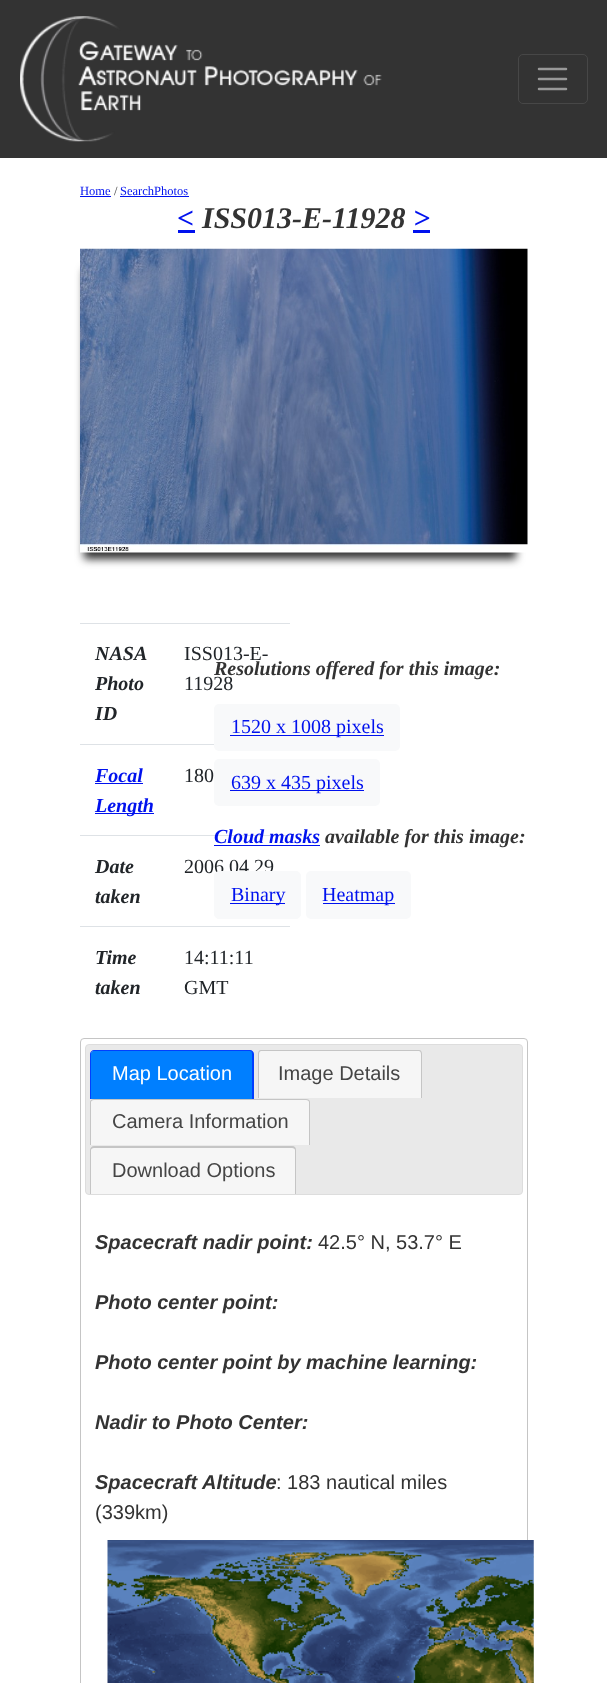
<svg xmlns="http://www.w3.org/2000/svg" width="607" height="1683">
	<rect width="100%" height="100%" fill="#FFFFFF" />
	<rect x="0" y="0" width="607" height="158" fill="#333333" />
	<image x="20" y="16" width="362" height="126" href="assets/img1.png" />
	<rect x="518.5" y="54.5" width="69" height="49" rx="4.5" fill="none" stroke="#474747" />
	<path d="M539 69H566M539 79H566M539 89H566" fill="none" stroke="#999999" stroke-width="2.5" stroke-linecap="round" />
	<text x="80" y="195" font-family="Liberation Serif" font-size="12.5" fill="#0011EE">Home</text>
	<rect x="80" y="196" width="31" height="1" fill="#0011EE" />
	<text x="114" y="195" font-family="Liberation Serif" font-size="12.5" fill="#333333">/</text>
	<text x="120" y="195" font-family="Liberation Serif" font-size="12.5" fill="#0011EE">SearchPhotos</text>
	<rect x="120" y="196" width="69" height="1" fill="#0011EE" />
	<text x="177" y="228" font-family="Liberation Serif" font-size="30" font-weight="700" font-style="italic" fill="#0011EE">&lt;</text>
	<rect x="178" y="230" width="17" height="3" fill="#0011EE" />
	<text x="202" y="228" font-family="Liberation Serif" font-size="30" font-weight="700" font-style="italic" fill="#333333">ISS013-E-11928</text>
	<text x="413" y="228" font-family="Liberation Serif" font-size="30" font-weight="700" font-style="italic" fill="#0011EE">&gt;</text>
	<rect x="413" y="230" width="17" height="3" fill="#0011EE" />
	<rect x="84" y="270" width="432" height="289" fill="#333333" filter="blur(4px)" />
	<image x="80" y="248" width="448" height="305" href="assets/img2.png" />
	<g font-family="Liberation Serif" font-size="20" font-weight="700" font-style="italic" fill="#212529">
		<text x="95" y="660">NASA</text>
		<text x="95" y="690">Photo</text>
		<text x="95" y="720">ID</text>
	</g>
	<rect x="80" y="623" width="210" height="1" fill="#DEE2E6" />
	<g font-family="Liberation Serif" font-size="20" fill="#212529">
		<text x="184" y="660">ISS013-E-</text>
		<text x="184" y="690">11928</text>
	</g>
	<text x="95" y="782" font-family="Liberation Serif" font-size="20" font-weight="700" font-style="italic" fill="#0011EE">Focal</text>
	<rect x="95" y="783" width="48" height="1" fill="#0011EE" />
	<rect x="95" y="813" width="59" height="1" fill="#0011EE" />
	<text x="95" y="812" font-family="Liberation Serif" font-size="20" font-weight="700" font-style="italic" fill="#0011EE">Length</text>
	<rect x="80" y="744" width="134" height="1" fill="#DEE2E6" />
	<text x="184" y="782" font-family="Liberation Serif" font-size="20" fill="#212529">180</text>
	<g font-family="Liberation Serif" font-size="20" font-weight="700" font-style="italic" fill="#212529">
		<text x="95" y="873">Date</text>
		<text x="95" y="903">taken</text>
	</g>
	<rect x="80" y="835" width="210" height="1" fill="#DEE2E6" />
	<text x="184" y="873" font-family="Liberation Serif" font-size="20" fill="#212529">2006.04.29</text>
	<g font-family="Liberation Serif" font-size="20" font-weight="700" font-style="italic" fill="#212529">
		<text x="95" y="964">Time</text>
		<text x="95" y="994">taken</text>
	</g>
	<rect x="80" y="926" width="210" height="1" fill="#DEE2E6" />
	<g font-family="Liberation Serif" font-size="20" fill="#212529">
		<text x="184" y="964">14:11:11</text>
		<text x="184" y="994">GMT</text>
	</g>
	<text x="214" y="675" font-family="Liberation Serif" font-size="20" font-weight="700" font-style="italic" fill="#333333">Resolutions offered for this image:</text>
	<rect x="214" y="704" width="186" height="47" rx="5" fill="#F8F9FA" />
	<rect x="230" y="735" width="154" height="1" fill="#0011EE" />
	<text x="231" y="733" font-family="Liberation Serif" font-size="20" fill="#0011EE">1520 x 1008 pixels</text>
	<rect x="214" y="759" width="166" height="47" rx="5" fill="#F8F9FA" />
	<rect x="230" y="790" width="134" height="1" fill="#0011EE" />
	<text x="231" y="789" font-family="Liberation Serif" font-size="20" fill="#0011EE">639 x 435 pixels</text>
	<text x="214" y="843" font-family="Liberation Serif" font-size="20" font-weight="700" font-style="italic" fill="#0011EE">Cloud masks</text>
	<rect x="214" y="845" width="106" height="1" fill="#0011EE" />
	<text x="325" y="843" font-family="Liberation Serif" font-size="20" font-weight="700" font-style="italic" fill="#333333">available for this image:</text>
	<rect x="214.5" y="871.5" width="86" height="47" rx="4.5" fill="#F8F9FA" stroke="#F8F9FA" />
	<rect x="230" y="903" width="55" height="1" fill="#0011EE" />
	<text x="231" y="901" font-family="Liberation Serif" font-size="20" fill="#0011EE">Binary</text>
	<rect x="306" y="871" width="105" height="48" rx="5" fill="#F8F9FA" />
	<rect x="323" y="903" width="72" height="1" fill="#0011EE" />
	<text x="322" y="901" font-family="Liberation Serif" font-size="20" fill="#0011EE">Heatmap</text>
	<rect x="80.5" y="1038.5" width="447" height="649" rx="3.5" fill="none" stroke="#C5C5C5" />
	<rect x="85.5" y="1044.5" width="437" height="150" rx="3.5" fill="#E9E9E9" stroke="#DDDDDD" />
	<path d="M93.5 1051H250.5C252 1051 253 1052 253 1053.5V1099H91V1053.5C91 1052 92 1051 93.5 1051Z" fill="#007FFF" />
	<path d="M94 1050H250C252 1050 254 1052 254 1054V1099H90V1054C90 1052 92 1050 94 1050ZM94 1051H250C251 1051 252 1052 252 1054V1099H91V1054C91 1052 92 1051 94 1051Z" fill="#003EFF" fill-rule="evenodd" />
	<text x="112" y="1080" font-family="Liberation Sans" font-size="20" fill="#FFFFFF">Map Location</text>
	<path d="M261.5 1051H418.5C420 1051 421 1052 421 1053.5V1098H259V1053.5C259 1052 260 1051 261.5 1051Z" fill="#F6F6F6" />
	<path d="M261 1050H419C421 1050 422 1052 422 1054V1098H258V1054C258 1052 259 1050 261 1050ZM261 1051H419C420 1051 421 1052 421 1054V1098H259V1054C259 1052 260 1051 261 1051Z" fill="#C5C5C5" fill-rule="evenodd" />
	<text x="278" y="1080" font-family="Liberation Sans" font-size="20" fill="#454545">Image Details</text>
	<path d="M93.5 1100H306.5C308 1100 309 1101 309 1102.5V1145H91V1102.5C91 1101 92 1100 93.5 1100Z" fill="#F6F6F6" />
	<path d="M94 1099H306C308 1099 310 1100 310 1102V1145H90V1102C90 1100 92 1099 94 1099ZM94 1100H306C308 1100 309 1101 309 1102V1145H91V1102C91 1101 92 1100 94 1100Z" fill="#C5C5C5" fill-rule="evenodd" />
	<text x="112" y="1128" font-family="Liberation Sans" font-size="20" fill="#454545">Camera Information</text>
	<path d="M93.5 1148H292.5C294 1148 295 1149 295 1150.5V1194H91V1150.5C91 1149 92 1148 93.5 1148Z" fill="#F6F6F6" />
	<path d="M94 1146H292C295 1146 296 1148 296 1150V1194H90V1150C90 1148 92 1146 94 1146ZM94 1148H292C294 1148 295 1149 295 1150V1194H91V1150C91 1149 92 1148 94 1148Z" fill="#C5C5C5" fill-rule="evenodd" />
	<text x="112" y="1177" font-family="Liberation Sans" font-size="20" fill="#454545">Download Options</text>
	<text x="95" y="1249" font-family="Liberation Sans" font-size="20" font-weight="700" font-style="italic" fill="#333333">Spacecraft nadir point:</text>
	<text x="318" y="1249" font-family="Liberation Sans" font-size="20" fill="#333333">42.5° N, 53.7° E</text>
	<g font-family="Liberation Sans" font-size="20" font-weight="700" font-style="italic" fill="#333333">
		<text x="95" y="1309">Photo center point:</text>
		<text x="95" y="1369">Photo center point by machine learning:</text>
		<text x="95" y="1429">Nadir to Photo Center:</text>
		<text x="95" y="1489">Spacecraft Altitude</text>
	</g>
	<g font-family="Liberation Sans" font-size="20" fill="#333333">
		<text x="276" y="1489">: 183 nautical miles</text>
		<text x="95" y="1519">(339km)</text>
	</g>
	<image x="107" y="1540" width="427" height="143" href="assets/img3.png" />
</svg>
